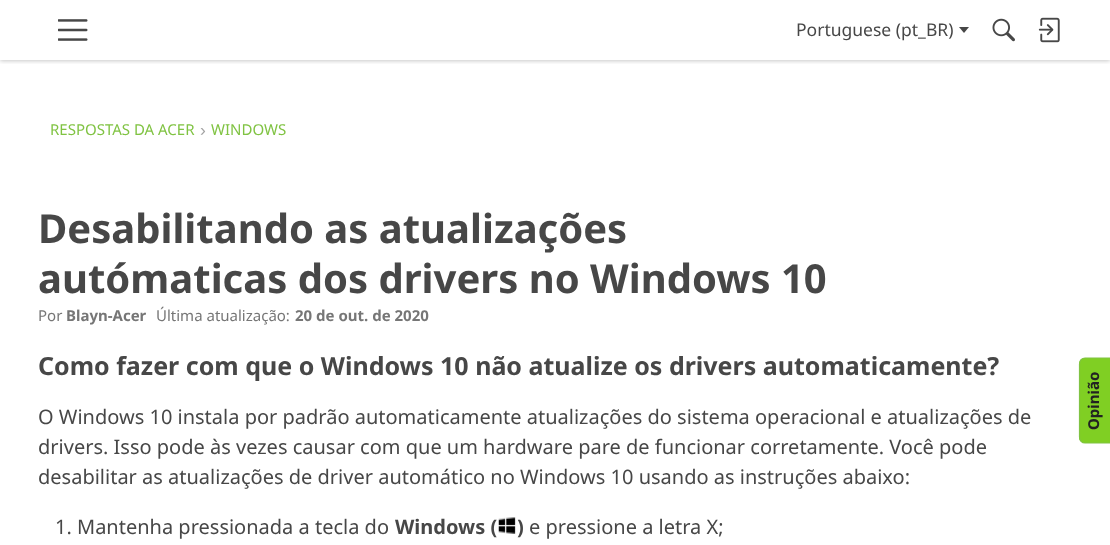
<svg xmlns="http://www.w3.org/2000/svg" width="1110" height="545">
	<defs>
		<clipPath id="clip1"><rect x="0" y="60" width="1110" height="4" /></clipPath>
	</defs>
	<rect width="100%" height="100%" fill="#FFFFFF" />
	<g clip-path="url(#clip1)">
		<rect x="0" y="1" width="1110" height="60" fill="#000000" fill-opacity="0.22" filter="blur(2px)" />
	</g>
	<image x="58" y="19" width="30" height="22" href="assets/img1.png" />
	<text x="796" y="36" font-family="Noto Sans" font-size="17.5" fill="#474747">Portuguese (pt_BR)</text>
	<path d="M959 27H969L964 33Z" fill="#474747" />
	<image x="992" y="18" width="23" height="24" href="assets/img2.png" />
	<image x="1038" y="17" width="22" height="26" href="assets/img3.png" />
	<text x="50" y="135" font-family="Noto Sans" font-size="15" fill="#80C343">RESPOSTAS DA ACER</text>
	<text x="200" y="136" font-family="Liberation Sans" font-size="17.5" fill="#A3A3A3">›</text>
	<text x="211" y="135" font-family="Noto Sans" font-size="15" fill="#80C343">WINDOWS</text>
	<g font-family="Noto Sans" font-size="40" font-weight="700" fill="#474747">
		<text x="38" y="243">Desabilitando as atualizações</text>
		<text x="38" y="293">autómaticas dos drivers no Windows 10</text>
	</g>
	<text x="38" y="321" font-family="Noto Sans" font-size="15" fill="#767676">Por</text>
	<text x="66" y="321" font-family="Noto Sans" font-size="15" font-weight="700" fill="#767676">Blayn-Acer</text>
	<text x="156" y="321" font-family="Noto Sans" font-size="15" fill="#767676">Última atualização:</text>
	<text x="295" y="321" font-family="Noto Sans" font-size="15" font-weight="700" fill="#767676">20 de out. de 2020</text>
	<text x="38" y="375" font-family="Noto Sans" font-size="25" font-weight="700" fill="#474747">Como fazer com que o Windows 10 não atualize os drivers automaticamente?</text>
	<g font-family="Noto Sans" font-size="20" fill="#474747">
		<text x="38" y="424">O Windows 10 instala por padrão automaticamente atualizações do sistema operacional e atualizações de</text>
		<text x="38" y="454">drivers. Isso pode às vezes causar com que um hardware pare de funcionar corretamente. Você pode</text>
		<text x="38" y="484">desabilitar as atualizações de driver automático no Windows 10 usando as instruções abaixo:</text>
		<text x="55" y="534">1. Mantenha pressionada a tecla do</text>
	</g>
	<g font-family="Noto Sans" font-size="20" font-weight="700" fill="#474747">
		<text x="395" y="534">Windows (</text>
		<text x="517" y="534">)</text>
	</g>
	<image x="498" y="517" width="20" height="17" href="assets/img4.png" />
	<text x="529" y="534" font-family="Noto Sans" font-size="20" fill="#474747">e pressione a letra X;</text>
	<path d="M1079 437V364C1079 360 1082 358 1085 358H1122V443H1085C1082 443 1079 441 1079 437Z" fill="#80CF23" />
	<path d="M1079.5 437V364C1079.5 360.5 1082 358 1085 358H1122V443H1085C1082 443 1079.5 440.5 1079.5 437Z" fill="none" stroke="#80C343" stroke-width="1.2" />
	<text x="1099" y="430" transform="rotate(-90 1099 430)" font-family="Noto Sans" font-size="15" font-weight="700" fill="#222222">Opinião</text>
</svg>
